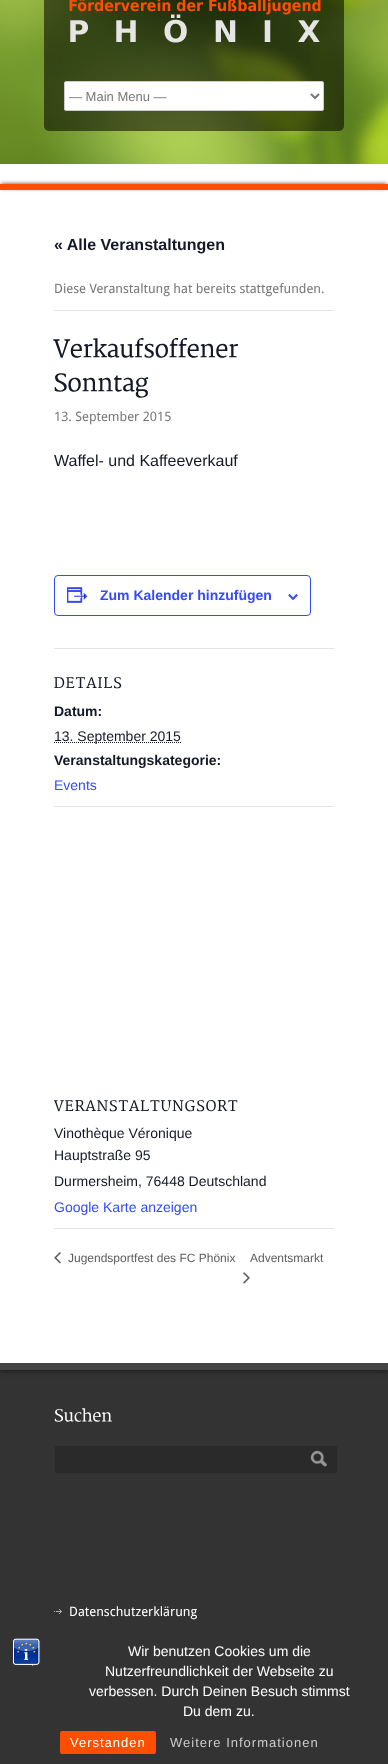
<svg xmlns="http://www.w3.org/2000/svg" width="388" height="1764">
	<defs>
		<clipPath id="clip1"><rect x="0" y="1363" width="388" height="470" /></clipPath>
	</defs>
	<rect width="100%" height="100%" fill="#FFFFFF" />
	<image x="0" y="0" width="388" height="164" href="assets/img1.png" />
	<image x="44" y="0" width="300" height="131" href="assets/img2.png" />
	<image x="69" y="0" width="252" height="43" href="assets/img3.png" />
	<rect x="64.5" y="81.5" width="259" height="29" rx="1.5" fill="#FFFFFF" stroke="#CCCCCC" />
	<path d="M311 94L315 98L319 94" fill="none" stroke="#777777" stroke-width="2" />
	<text x="69" y="101" font-family="Liberation Sans" font-size="13" fill="#777777">— Main Menu —</text>
	<rect x="1" y="184" width="386" height="4" fill="#333333" filter="blur(2px)" />
	<rect x="0" y="184" width="388" height="6" fill="#FF4E00" />
	<text x="54" y="250" font-family="Liberation Sans" font-size="16" font-weight="700" fill="#141827">« Alle Veranstaltungen</text>
	<rect x="54" y="310" width="280" height="1" fill="#E4E4E4" />
	<text x="54" y="293" font-family="Droid Sans" font-size="13" fill="#777777">Diese Veranstaltung hat bereits stattgefunden.</text>
	<image x="53" y="338" width="185" height="20" href="assets/img4.png" />
	<image x="54" y="373" width="95" height="25" href="assets/img5.png" />
	<text x="54" y="421" font-family="Droid Sans" font-size="13" fill="#777777">13. September 2015</text>
	<text x="54" y="466" font-family="Liberation Sans" font-size="16" fill="#141827">Waffel- und Kaffeeverkauf</text>
	<rect x="54.5" y="575.5" width="256" height="40" rx="3.5" fill="none" stroke="#334AFF" />
	<image x="67" y="587" width="21" height="16" href="assets/img6.png" />
	<text x="100" y="600" font-family="Liberation Sans" font-size="14" font-weight="700" fill="#334AFF">Zum Kalender hinzufügen</text>
	<image x="288" y="594" width="10" height="6" href="assets/img7.png" />
	<rect x="54" y="648" width="280" height="1" fill="#E4E4E4" />
	<image x="54" y="677" width="68" height="12" href="assets/img8.png" />
	<text x="54" y="716" font-family="Liberation Sans" font-size="14" font-weight="700" fill="#141827">Datum:</text>
	<path d="M54 742.5H181" fill="none" stroke="#141827" stroke-dasharray="1 1" />
	<text x="54" y="741" font-family="Liberation Sans" font-size="14" fill="#141827">13. September 2015</text>
	<text x="54" y="765" font-family="Liberation Sans" font-size="14" font-weight="700" fill="#141827">Veranstaltungskategorie:</text>
	<text x="54" y="790" font-family="Liberation Sans" font-size="14" fill="#334AFF">Events</text>
	<rect x="54" y="806" width="280" height="1" fill="#E4E4E4" />
	<image x="54" y="1100" width="184" height="12" href="assets/img9.png" />
	<g font-family="Liberation Sans" font-size="14" fill="#141827">
		<text x="54" y="1138">Vinothèque Véronique</text>
		<text x="54" y="1160">Hauptstraße 95</text>
		<text x="54" y="1186">Durmersheim, 76448 Deutschland</text>
	</g>
	<text x="54" y="1212" font-family="Liberation Sans" font-size="14" fill="#334AFF">Google Karte anzeigen</text>
	<rect x="54" y="1228" width="280" height="1" fill="#E4E4E4" />
	<image x="54" y="1252" width="7" height="12" href="assets/img10.png" />
	<g font-family="Liberation Sans" font-size="12" fill="#5D5D5D">
		<text x="68" y="1262">Jugendsportfest des FC Phönix</text>
		<text x="250" y="1262">Adventsmarkt</text>
	</g>
	<image x="243" y="1272" width="7" height="12" href="assets/img11.png" />
	<rect x="0" y="1370" width="388" height="394" fill="#333333" />
	<g clip-path="url(#clip1)">
		<rect x="0" y="1363" width="388" height="7" fill="#111111" filter="blur(3px)" />
	</g>
	<rect x="0" y="1363" width="388" height="7" fill="#444444" />
	<image x="54" y="1408" width="58" height="14" href="assets/img12.png" />
	<rect x="54.5" y="1445.5" width="283" height="28" rx="1.5" fill="#2A2A2A" stroke="#333333" />
	<image x="310" y="1450" width="17" height="17" href="assets/img13.png" />
	<image x="54" y="1609" width="8" height="5" href="assets/img14.png" />
	<text x="69" y="1616" font-family="Droid Sans" font-size="13" fill="#FFFFFF">Datenschutzerklärung</text>
	<image x="13" y="1638" width="28" height="28" href="assets/img15.png" />
	<g font-family="Liberation Sans" font-size="14" fill="#FFFFFF">
		<text x="128" y="1656">Wir benutzen Cookies um die</text>
		<text x="105" y="1676">Nutzerfreundlichkeit der Webseite zu</text>
		<text x="89" y="1696">verbessen. Durch Deinen Besuch stimmst</text>
		<text x="183" y="1716">Du dem zu.</text>
	</g>
	<rect x="60" y="1731" width="96" height="23" rx="2" fill="#FF4E00" />
	<text x="70" y="1747" font-family="Liberation Sans" font-size="13" letter-spacing="1" fill="#FFFFFF">Verstanden</text>
	<text x="170" y="1747" font-family="Liberation Sans" font-size="13" letter-spacing="1" fill="#CCCCCC">Weitere Informationen</text>
</svg>
